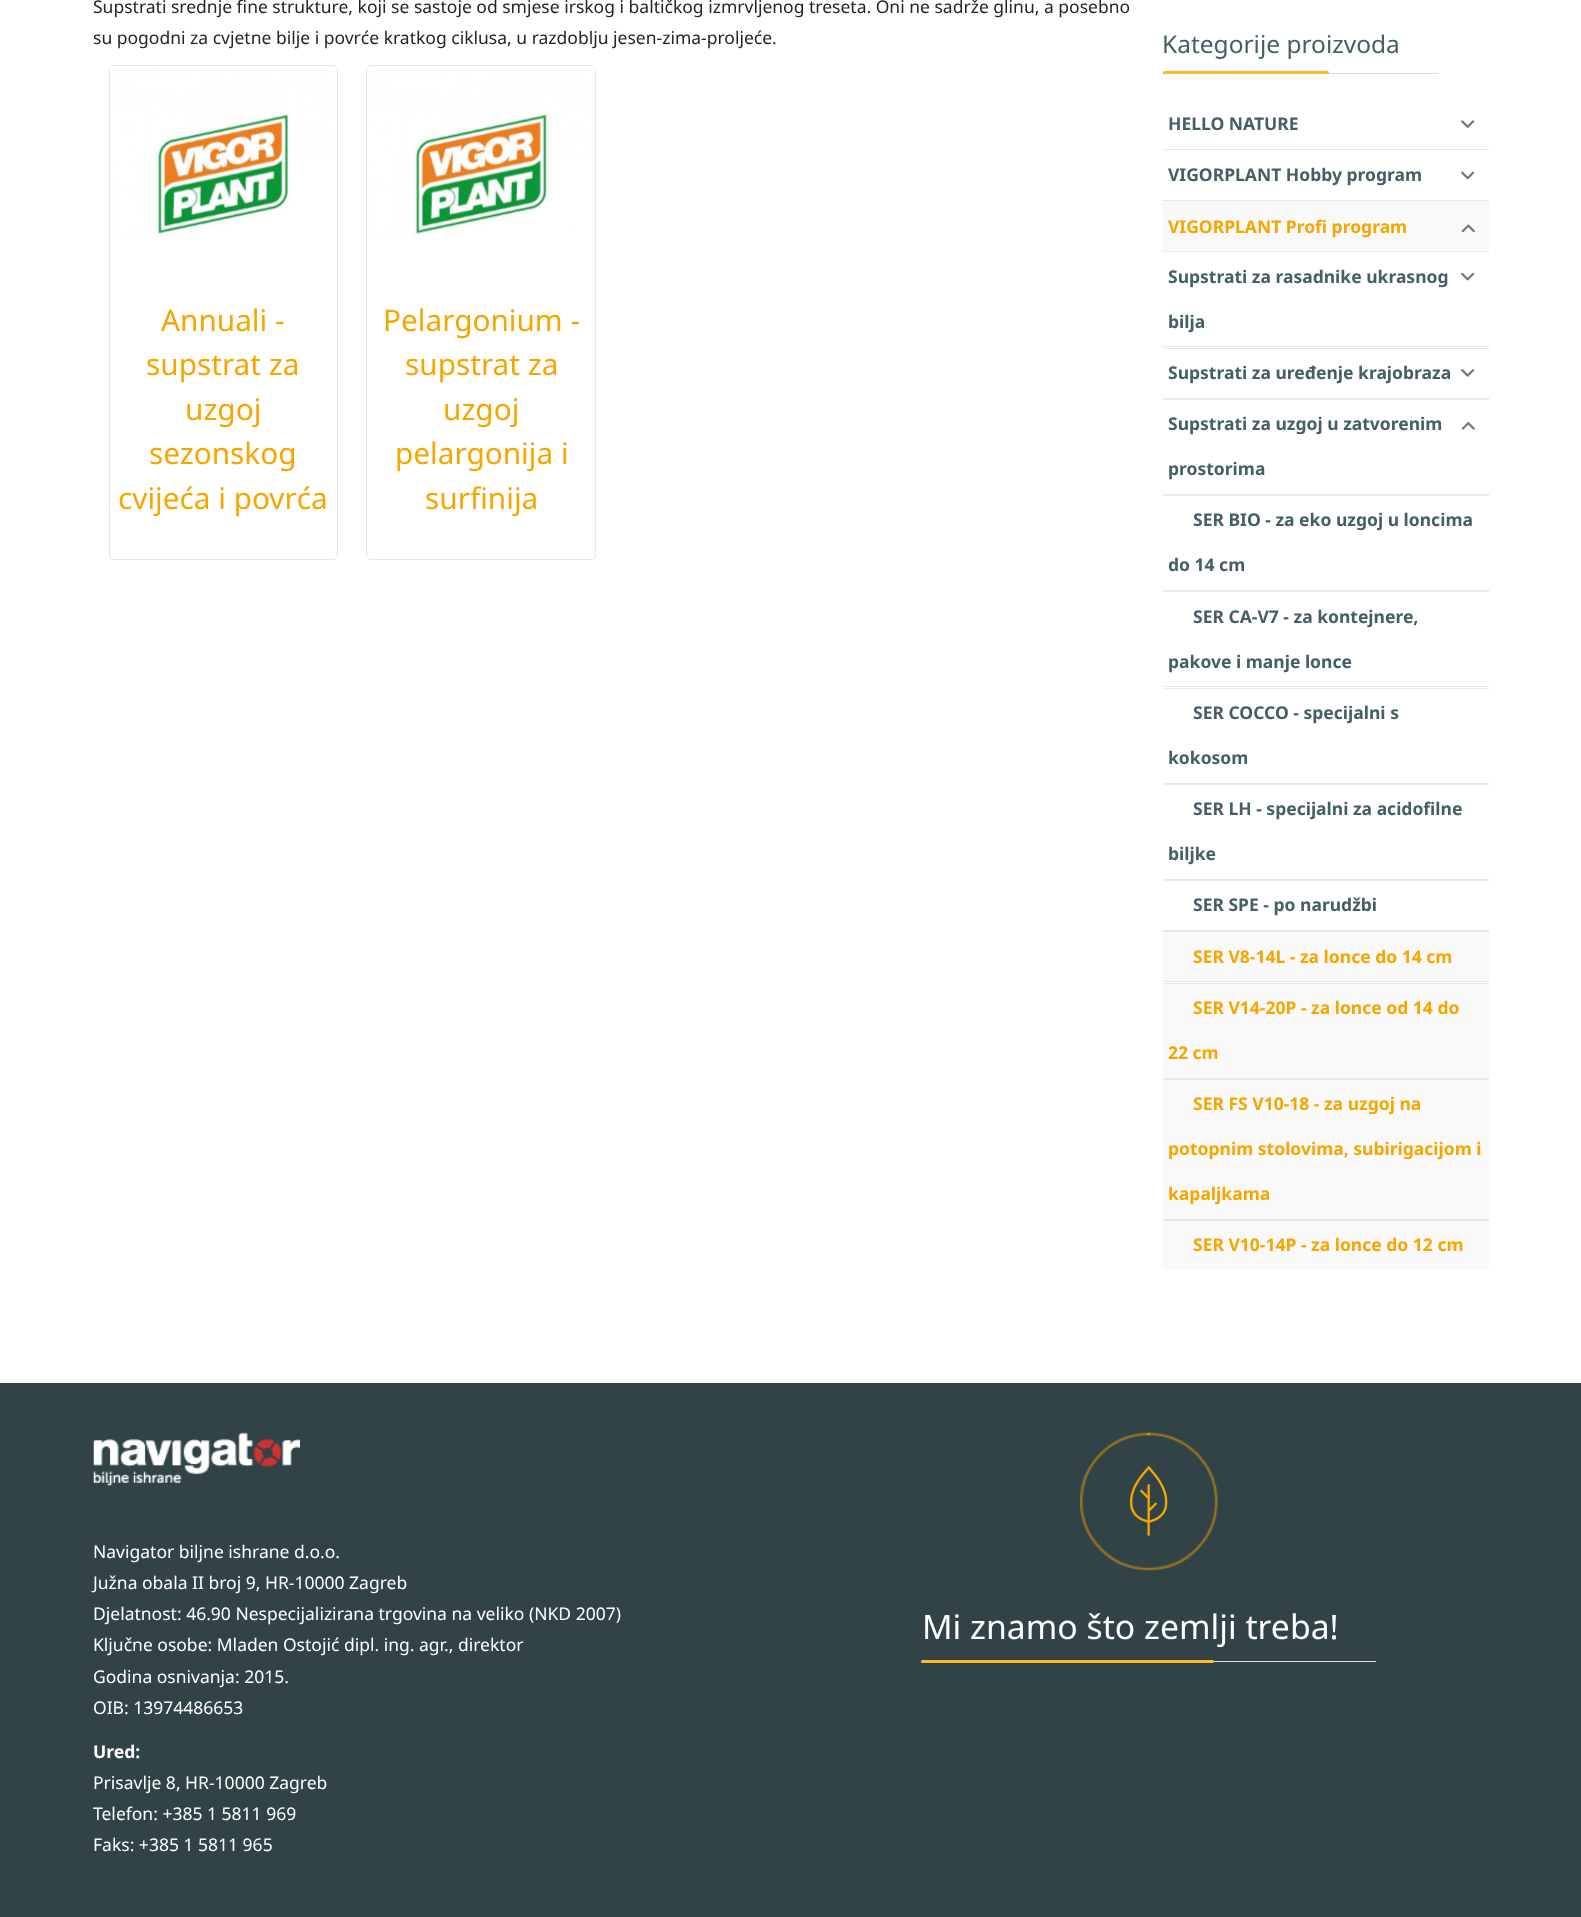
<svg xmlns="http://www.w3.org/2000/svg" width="1581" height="1917">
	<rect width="100%" height="100%" fill="#FFFFFF" />
	<g font-family="Noto Sans" font-size="17.5" fill="#212529">
		<text x="93" y="13">Supstrati srednje fine strukture, koji se sastoje od smjese irskog i baltičkog izmrvljenog treseta. Oni ne sadrže glinu, a posebno</text>
		<text x="93" y="44">su pogodni za cvjetne bilje i povrće kratkog ciklusa, u razdoblju jesen-zima-proljeće.</text>
	</g>
	<rect x="109.5" y="65.5" width="228" height="494" rx="4.5" fill="none" stroke="#E6E6E6" />
	<image x="110" y="66" width="227" height="171" href="assets/img1.png" />
	<g font-family="Noto Sans" font-size="29.75" fill="#F7A600">
		<text x="161" y="331">Annuali -</text>
		<text x="146" y="375">supstrat za</text>
		<text x="185" y="420">uzgoj</text>
		<text x="149" y="464">sezonskog</text>
		<text x="118" y="509">cvijeća i povrća</text>
	</g>
	<rect x="366.5" y="65.5" width="229" height="494" rx="4.5" fill="none" stroke="#E6E6E6" />
	<image x="367" y="66" width="228" height="171" href="assets/img2.png" />
	<g font-family="Noto Sans" font-size="29.75" fill="#F7A600">
		<text x="383" y="331">Pelargonium -</text>
		<text x="405" y="375">supstrat za</text>
		<text x="443" y="420">uzgoj</text>
		<text x="395" y="464">pelargonija i</text>
		<text x="425" y="509">surfinija</text>
	</g>
	<rect x="1163" y="73" width="275" height="1" fill="#DDDDDD" />
	<text x="1162" y="53" font-family="Noto Sans" font-size="24.5" fill="#465F65">Kategorije proizvoda</text>
	<rect x="1163" y="71" width="166" height="3" rx="1.5" fill="#FFB92B" />
	<rect x="1163" y="149" width="326" height="1" fill="#E8E8E8" />
	<text x="1168" y="130" font-family="Noto Sans" font-size="17.5" font-weight="700" fill="#465F65">HELLO NATURE</text>
	<image x="1461" y="120" width="14" height="8" href="assets/img3.png" />
	<rect x="1163" y="200" width="326" height="1" fill="#E8E8E8" />
	<text x="1168" y="181" font-family="Noto Sans" font-size="17.5" font-weight="700" fill="#465F65">VIGORPLANT Hobby program</text>
	<image x="1461" y="171" width="14" height="9" href="assets/img4.png" />
	<rect x="1163" y="201" width="326" height="50" fill="#F9F9F9" />
	<text x="1168" y="233" font-family="Noto Sans" font-size="17.5" font-weight="700" fill="#F7A600">VIGORPLANT Profi program</text>
	<image x="1461" y="224" width="14" height="9" href="assets/img5.png" />
	<rect x="1163" y="346" width="326" height="1" fill="#E8E8E8" />
	<rect x="1163" y="251" width="326" height="1" fill="#ECECEC" />
	<g font-family="Noto Sans" font-size="17.5" font-weight="700" fill="#465F65">
		<text x="1168" y="283">Supstrati za rasadnike ukrasnog</text>
		<text x="1168" y="328">bilja</text>
	</g>
	<image x="1461" y="272" width="14" height="9" href="assets/img6.png" />
	<rect x="1163" y="398" width="326" height="1" fill="#E8E8E8" />
	<rect x="1163" y="348" width="326" height="1" fill="#ECECEC" />
	<text x="1168" y="379" font-family="Noto Sans" font-size="17.5" font-weight="700" fill="#465F65">Supstrati za uređenje krajobraza</text>
	<image x="1461" y="369" width="14" height="8" href="assets/img7.png" />
	<rect x="1163" y="494" width="326" height="1" fill="#E8E8E8" />
	<rect x="1163" y="399" width="326" height="1" fill="#ECECEC" />
	<g font-family="Noto Sans" font-size="17.5" font-weight="700" fill="#465F65">
		<text x="1168" y="430">Supstrati za uzgoj u zatvorenim</text>
		<text x="1168" y="475">prostorima</text>
	</g>
	<image x="1461" y="422" width="14" height="8" href="assets/img8.png" />
	<rect x="1163" y="590" width="326" height="1" fill="#E8E8E8" />
	<rect x="1163" y="495" width="326" height="1" fill="#ECECEC" />
	<g font-family="Noto Sans" font-size="17.5" font-weight="700" fill="#465F65">
		<text x="1193" y="526">SER BIO - za eko uzgoj u loncima</text>
		<text x="1168" y="571">do 14 cm</text>
	</g>
	<rect x="1163" y="686" width="326" height="1" fill="#E8E8E8" />
	<rect x="1163" y="591" width="326" height="1" fill="#ECECEC" />
	<g font-family="Noto Sans" font-size="17.5" font-weight="700" fill="#465F65">
		<text x="1193" y="623">SER CA-V7 - za kontejnere,</text>
		<text x="1168" y="668">pakove i manje lonce</text>
	</g>
	<rect x="1163" y="783" width="326" height="1" fill="#E8E8E8" />
	<rect x="1163" y="688" width="326" height="1" fill="#ECECEC" />
	<g font-family="Noto Sans" font-size="17.5" font-weight="700" fill="#465F65">
		<text x="1193" y="719">SER COCCO - specijalni s</text>
		<text x="1168" y="764">kokosom</text>
	</g>
	<rect x="1163" y="879" width="326" height="1" fill="#E8E8E8" />
	<rect x="1163" y="784" width="326" height="1" fill="#ECECEC" />
	<g font-family="Noto Sans" font-size="17.5" font-weight="700" fill="#465F65">
		<text x="1193" y="815">SER LH - specijalni za acidofilne</text>
		<text x="1168" y="860">biljke</text>
	</g>
	<rect x="1163" y="930" width="326" height="1" fill="#E8E8E8" />
	<rect x="1163" y="880" width="326" height="1" fill="#ECECEC" />
	<text x="1193" y="911" font-family="Noto Sans" font-size="17.5" font-weight="700" fill="#465F65">SER SPE - po narudžbi</text>
	<rect x="1163" y="981" width="326" height="1" fill="#E8E8E8" />
	<rect x="1163" y="932" width="326" height="49" fill="#F9F9F9" />
	<rect x="1163" y="931" width="326" height="1" fill="#E6E6E6" />
	<text x="1193" y="963" font-family="Noto Sans" font-size="17.5" font-weight="700" fill="#F7A600">SER V8-14L - za lonce do 14 cm</text>
	<rect x="1163" y="1078" width="326" height="1" fill="#E8E8E8" />
	<rect x="1163" y="984" width="326" height="94" fill="#F9F9F9" />
	<rect x="1163" y="983" width="326" height="1" fill="#E6E6E6" />
	<g font-family="Noto Sans" font-size="17.5" font-weight="700" fill="#F7A600">
		<text x="1193" y="1014">SER V14-20P - za lonce od 14 do</text>
		<text x="1168" y="1059">22 cm</text>
	</g>
	<rect x="1163" y="1219" width="326" height="1" fill="#E8E8E8" />
	<rect x="1163" y="1080" width="326" height="139" fill="#F9F9F9" />
	<rect x="1163" y="1079" width="326" height="1" fill="#E6E6E6" />
	<g font-family="Noto Sans" font-size="17.5" font-weight="700" fill="#F7A600">
		<text x="1193" y="1110">SER FS V10-18 - za uzgoj na</text>
		<text x="1168" y="1155">potopnim stolovima, subirigacijom i</text>
		<text x="1168" y="1200">kapaljkama</text>
	</g>
	<rect x="1163" y="1221" width="326" height="49" fill="#F9F9F9" />
	<rect x="1163" y="1220" width="326" height="1" fill="#E6E6E6" />
	<text x="1193" y="1251" font-family="Noto Sans" font-size="17.5" font-weight="700" fill="#F7A600">SER V10-14P - za lonce do 12 cm</text>
	<rect x="0" y="1383" width="1581" height="534" fill="#314347" />
	<image x="93" y="1432" width="207" height="54" href="assets/img9.png" />
	<g font-family="Noto Sans" font-size="17.5" fill="#FFFFFF">
		<text x="93" y="1558">Navigator biljne ishrane d.o.o.</text>
		<text x="93" y="1589">Južna obala II broj 9, HR-10000 Zagreb</text>
		<text x="93" y="1620">Djelatnost: 46.90 Nespecijalizirana trgovina na veliko (NKD 2007)</text>
		<text x="93" y="1651">Ključne osobe: Mladen Ostojić dipl. ing. agr., direktor</text>
		<text x="93" y="1683">Godina osnivanja: 2015.</text>
		<text x="93" y="1714">OIB: 13974486653</text>
	</g>
	<text x="93" y="1758" font-family="Noto Sans" font-size="17.5" font-weight="700" fill="#FFFFFF">Ured:</text>
	<g font-family="Noto Sans" font-size="17.5" fill="#FFFFFF">
		<text x="93" y="1789">Prisavlje 8, HR-10000 Zagreb</text>
		<text x="93" y="1820">Telefon: +385 1 5811 969</text>
		<text x="93" y="1851">Faks: +385 1 5811 965</text>
	</g>
	<image x="1130" y="1465" width="38" height="71" href="assets/img11.png" />
	<image x="1080" y="1432" width="138" height="139" href="assets/img10.png" />
	<rect x="921" y="1661" width="455" height="1" fill="#DDDDDD" />
	<text x="922" y="1639" font-family="Noto Sans" font-size="33.75" fill="#FFFFFF">Mi znamo što zemlji treba!</text>
	<rect x="921" y="1660" width="293" height="3" rx="1.5" fill="#FFB92B" />
</svg>
